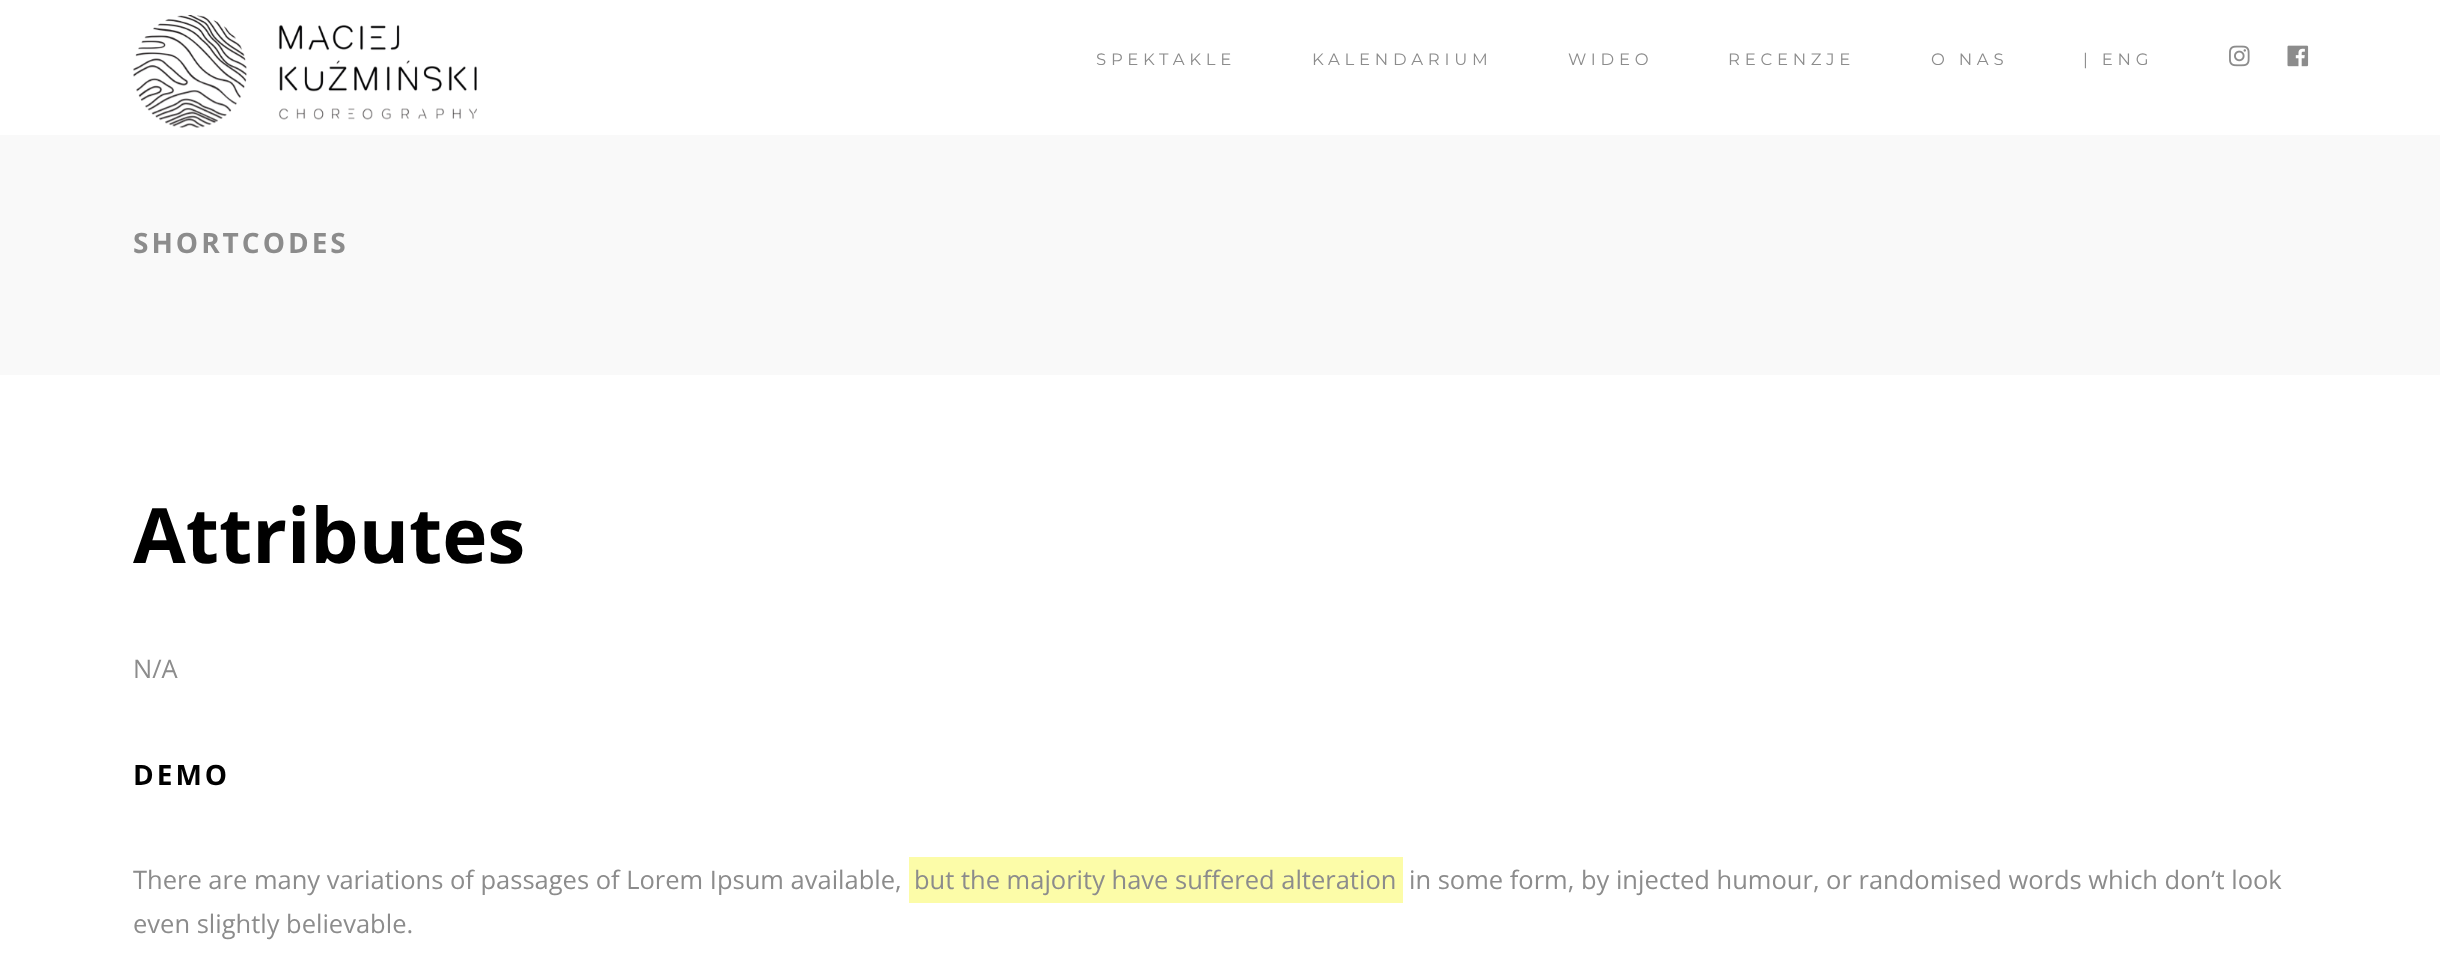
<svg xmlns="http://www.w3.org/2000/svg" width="2440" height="958">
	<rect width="100%" height="100%" fill="#F9F9F9" />
	<rect x="0" y="0" width="2440" height="135" fill="#FFFFFF" />
	<image x="133" y="15" width="344" height="113" href="assets/img1.png" />
	<g font-family="Montserrat" font-size="16.5" letter-spacing="4.75" fill="#8C8C8C">
		<text x="1096" y="65">SPEKTAKLE</text>
		<text x="1312" y="65">KALENDARIUM</text>
		<text x="1568" y="65">WIDEO</text>
		<text x="1728" y="65">RECENZJE</text>
		<text x="1931" y="65">O NAS</text>
		<text x="2083" y="65">| ENG</text>
	</g>
	<image x="2229" y="45" width="21" height="22" href="assets/img2.png" />
	<image x="2287" y="45" width="22" height="22" href="assets/img3.png" />
	<text x="133" y="253" font-family="Open Sans" font-size="28" font-weight="700" letter-spacing="3" fill="#8C8C8C">SHORTCODES</text>
	<rect x="0" y="375" width="2440" height="583" fill="#FFFFFF" />
	<text x="133" y="563" font-family="Open Sans" font-size="76.5" font-weight="700" fill="#000000">Attributes</text>
	<text x="133" y="678" font-family="Open Sans" font-size="25.5" fill="#8C8C8C">N/A</text>
	<text x="133" y="785" font-family="Open Sans" font-size="28" font-weight="700" letter-spacing="3" fill="#000000">DEMO</text>
	<text x="133" y="889" font-family="Open Sans" font-size="25.5" fill="#8C8C8C">There are many variations of passages of Lorem Ipsum available,</text>
	<rect x="909" y="857" width="494" height="46" fill="#FCFCA8" />
	<g font-family="Open Sans" font-size="25.5" fill="#8C8C8C">
		<text x="914" y="889">but the majority have suffered alteration</text>
		<text x="1409" y="889">in some form, by injected humour, or randomised words which don’t look</text>
		<text x="133" y="933">even slightly believable.</text>
	</g>
</svg>
